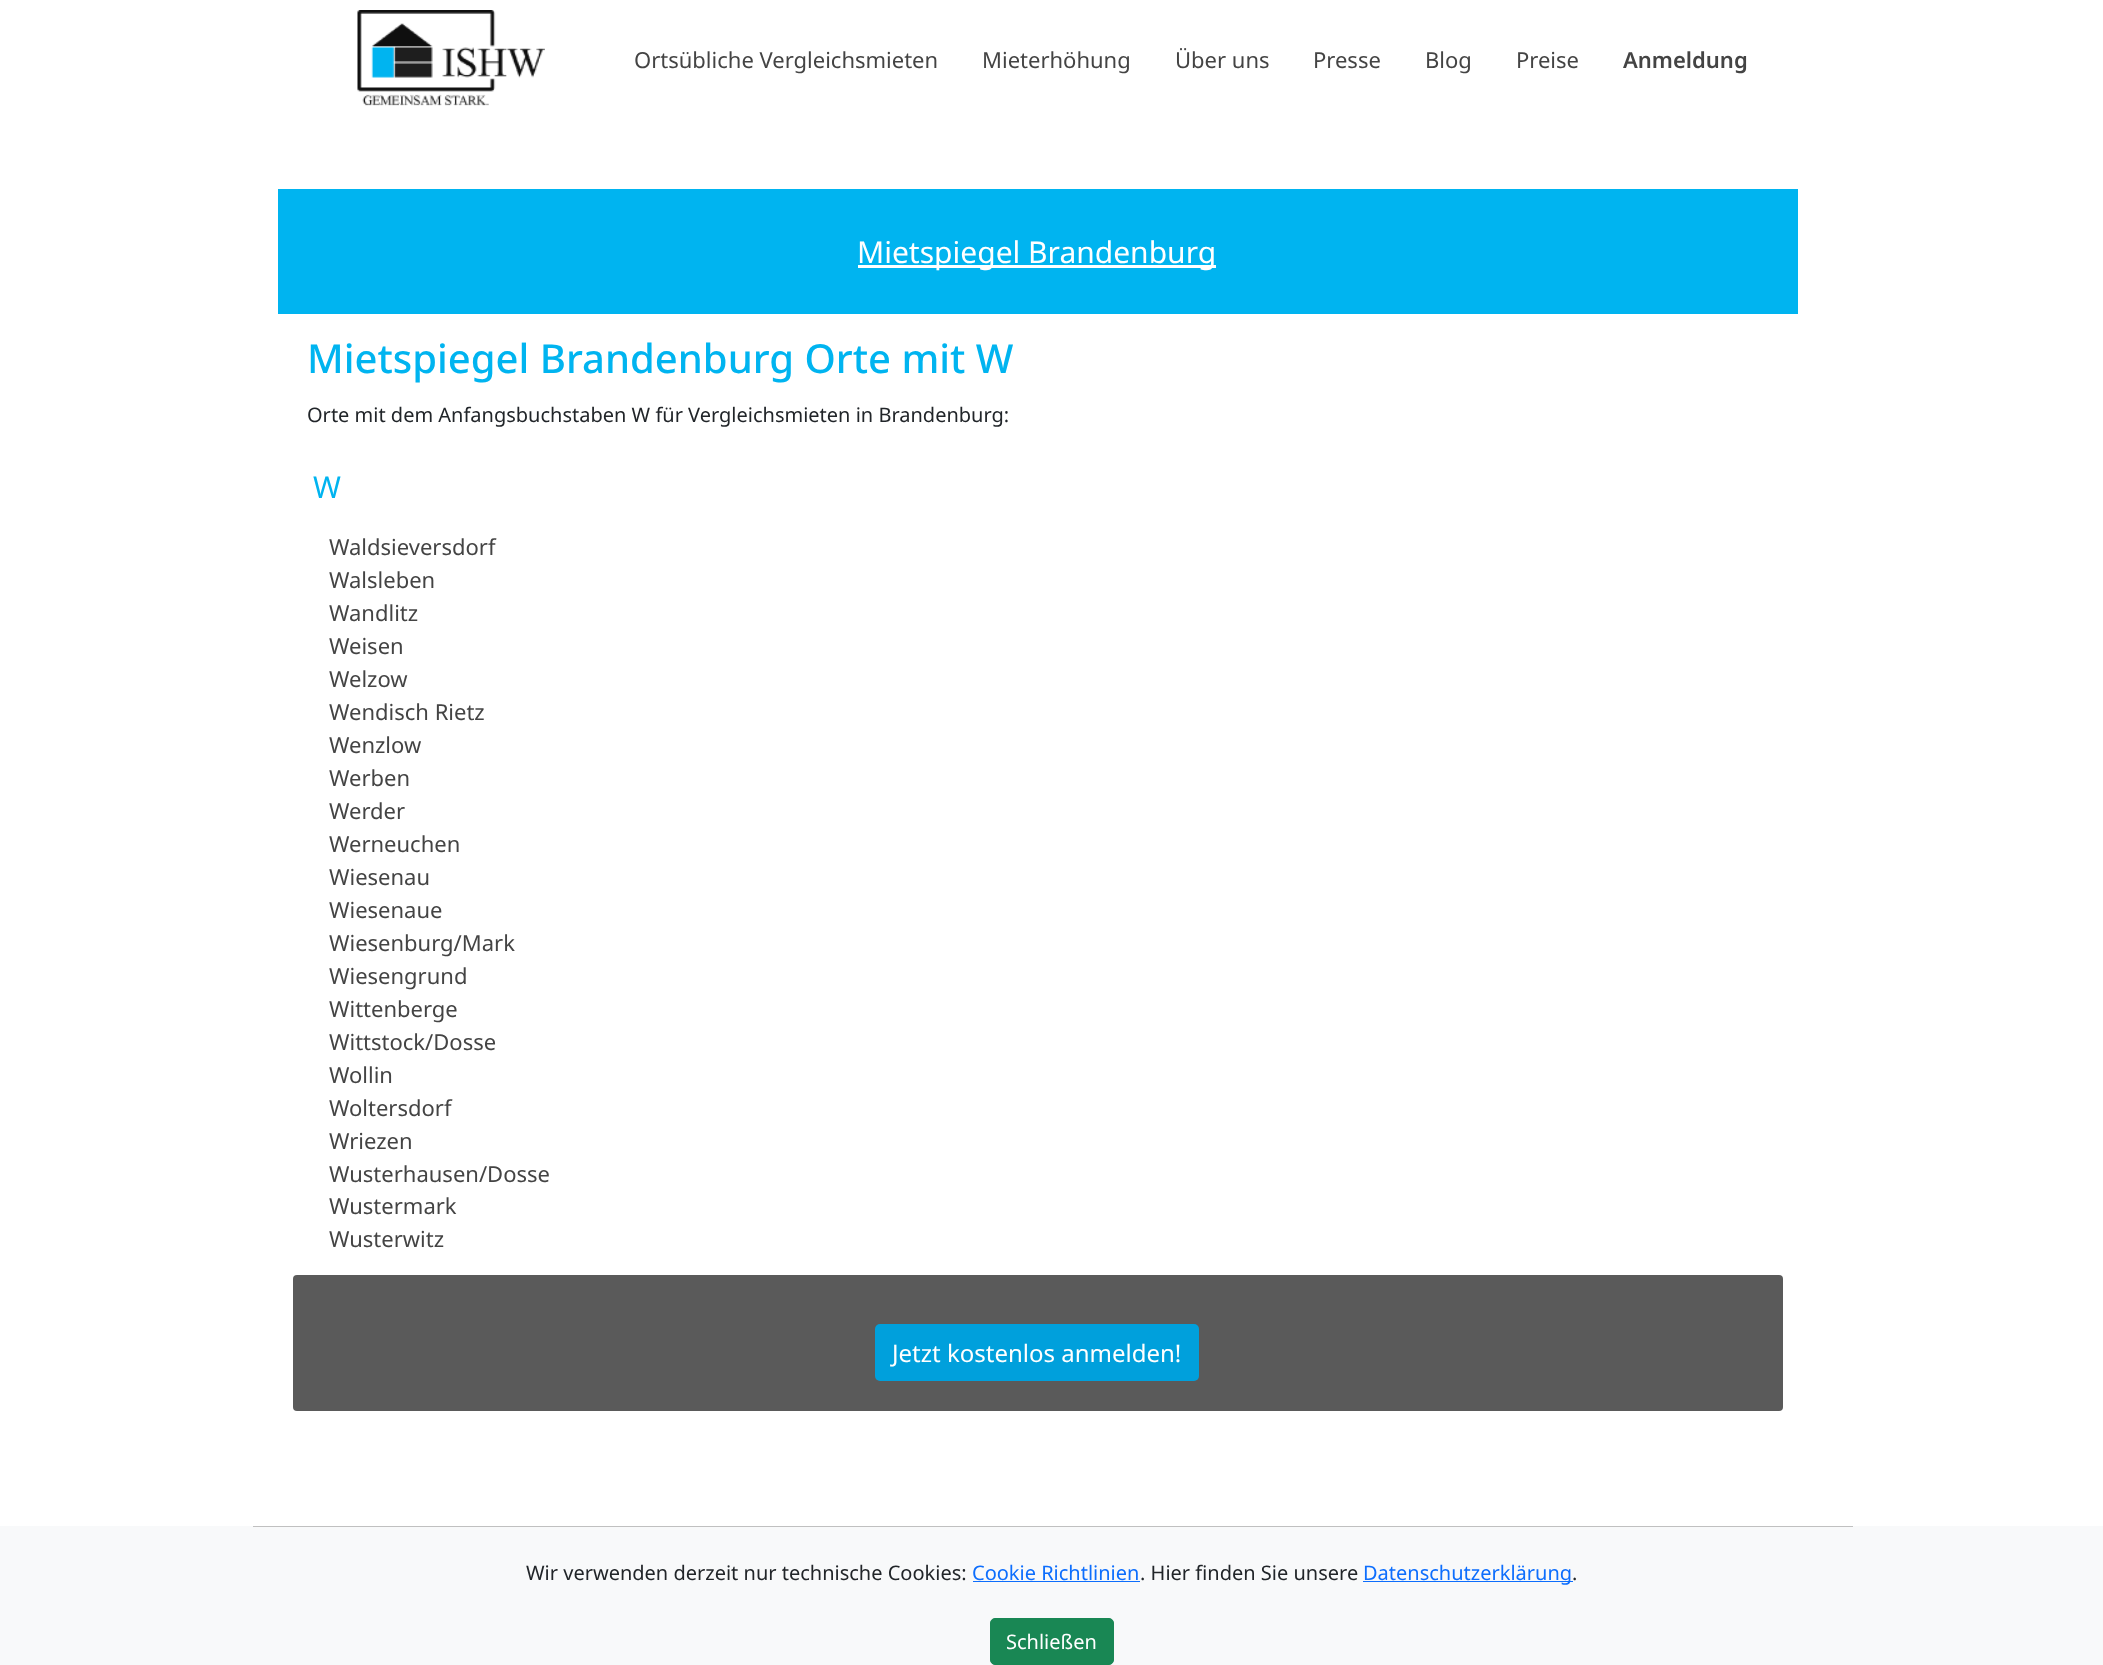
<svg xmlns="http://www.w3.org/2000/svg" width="2103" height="1665">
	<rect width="100%" height="100%" fill="#FFFFFF" />
	<image x="357" y="10" width="188" height="96" href="assets/img1.png" />
	<g font-family="Noto Sans" font-size="22" fill="#444444">
		<text x="634" y="68">Ortsübliche Vergleichsmieten</text>
		<text x="982" y="68">Mieterhöhung</text>
		<text x="1175" y="68">Über uns</text>
		<text x="1313" y="68">Presse</text>
		<text x="1425" y="68">Blog</text>
		<text x="1516" y="68">Preise</text>
	</g>
	<text x="1623" y="68" font-family="Noto Sans" font-size="22" font-weight="600" fill="#444444">Anmeldung</text>
	<rect x="278" y="189" width="1520" height="125" fill="#00B4F0" />
	<rect x="858" y="265" width="358" height="3" fill="#FFFFFF" />
	<text x="857" y="263" font-family="Noto Sans" font-size="30" fill="#FFFFFF">Mietspiegel Brandenburg</text>
	<text x="307" y="373" font-family="Noto Sans" font-size="40" font-weight="500" fill="#00B4F0">Mietspiegel Brandenburg Orte mit W</text>
	<text x="307" y="422" font-family="Noto Sans" font-size="20" fill="#212529">Orte mit dem Anfangsbuchstaben W für Vergleichsmieten in Brandenburg:</text>
	<text x="313" y="498" font-family="Noto Sans" font-size="30" fill="#00B4F0">W</text>
	<g font-family="Noto Sans" font-size="22" fill="#444444">
		<text x="329" y="555">Waldsieversdorf</text>
		<text x="329" y="588">Walsleben</text>
		<text x="329" y="621">Wandlitz</text>
		<text x="329" y="654">Weisen</text>
		<text x="329" y="687">Welzow</text>
		<text x="329" y="720">Wendisch Rietz</text>
		<text x="329" y="753">Wenzlow</text>
		<text x="329" y="786">Werben</text>
		<text x="329" y="819">Werder</text>
		<text x="329" y="852">Werneuchen</text>
		<text x="329" y="885">Wiesenau</text>
		<text x="329" y="918">Wiesenaue</text>
		<text x="329" y="951">Wiesenburg/Mark</text>
		<text x="329" y="984">Wiesengrund</text>
		<text x="329" y="1017">Wittenberge</text>
		<text x="329" y="1050">Wittstock/Dosse</text>
		<text x="329" y="1083">Wollin</text>
		<text x="329" y="1116">Woltersdorf</text>
		<text x="329" y="1149">Wriezen</text>
		<text x="329" y="1182">Wusterhausen/Dosse</text>
		<text x="329" y="1214">Wustermark</text>
		<text x="329" y="1247">Wusterwitz</text>
	</g>
	<rect x="293" y="1275" width="1490" height="136" rx="4" fill="#5A5A5A" />
	<rect x="875" y="1324" width="324" height="57" rx="5" fill="#00A0DC" />
	<text x="892" y="1362" font-family="Noto Sans" font-size="24" fill="#FFFFFF">Jetzt kostenlos anmelden!</text>
	<rect x="0" y="1526" width="2103" height="139" fill="#F8F9FA" />
	<rect x="253" y="1526" width="1600" height="1" fill="#C0C0C0" />
	<text x="526" y="1580" font-family="Noto Sans" font-size="20" fill="#212529">Wir verwenden derzeit nur technische Cookies:</text>
	<text x="972" y="1580" font-family="Noto Sans" font-size="20" fill="#0D6EFD">Cookie Richtlinien</text>
	<rect x="973" y="1581" width="167" height="1" fill="#0D6EFD" />
	<text x="1140" y="1580" font-family="Noto Sans" font-size="20" fill="#212529">. Hier finden Sie unsere</text>
	<rect x="1363" y="1581" width="210" height="1" fill="#0D6EFD" />
	<text x="1363" y="1580" font-family="Noto Sans" font-size="20" fill="#0D6EFD">Datenschutzerklärung</text>
	<text x="1572" y="1580" font-family="Noto Sans" font-size="20" fill="#212529">.</text>
	<rect x="990.5" y="1618.5" width="123" height="46" rx="4.5" fill="#198754" stroke="#198754" />
	<text x="1006" y="1649" font-family="Noto Sans" font-size="20" fill="#FFFFFF">Schließen</text>
</svg>
